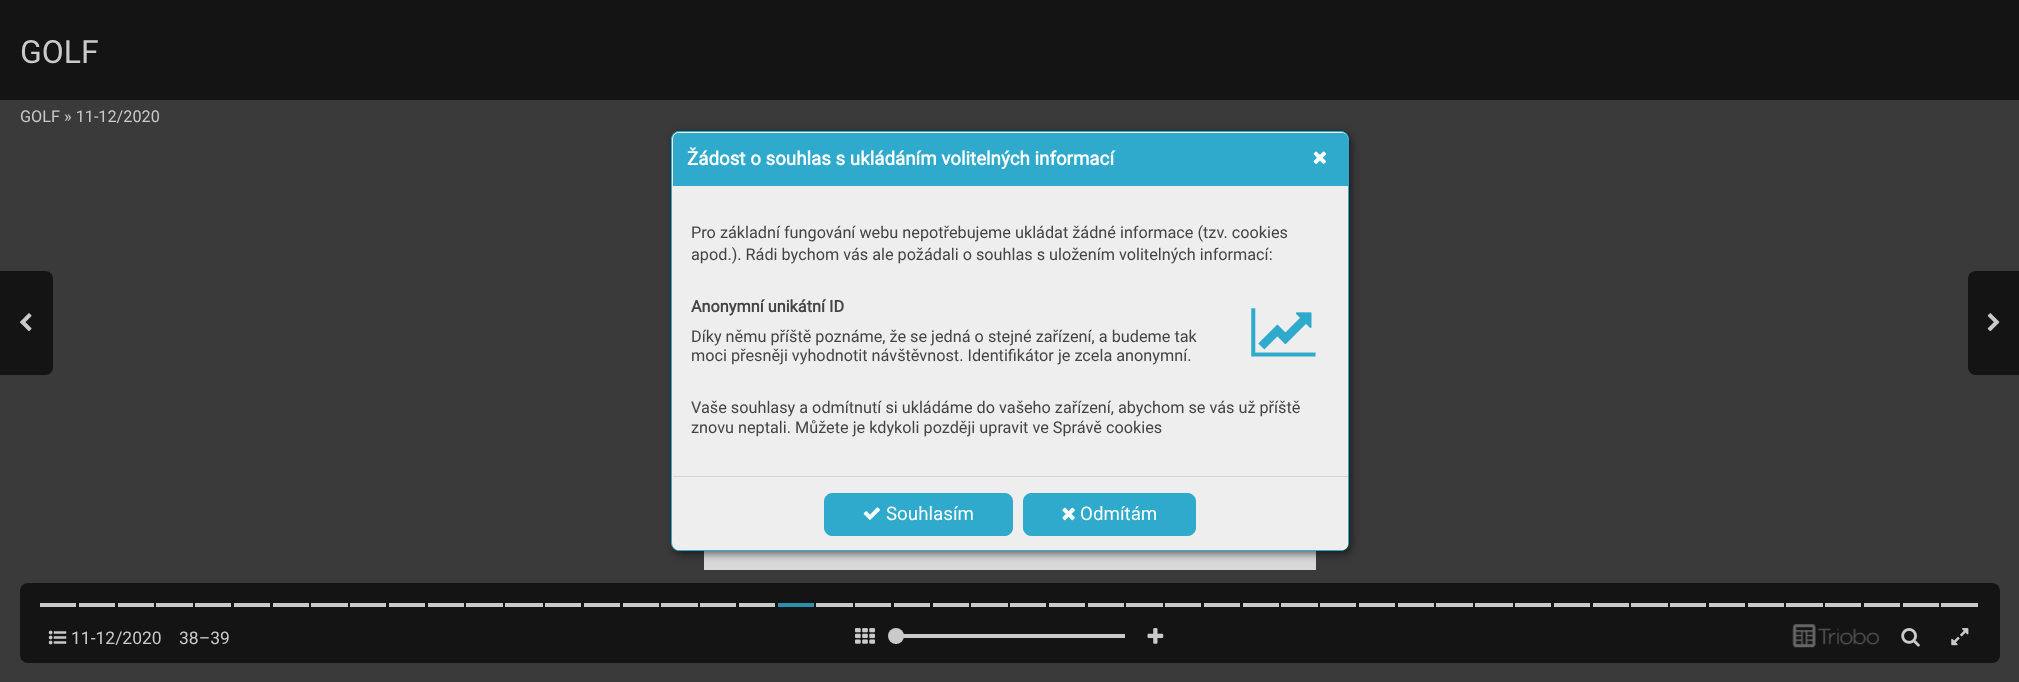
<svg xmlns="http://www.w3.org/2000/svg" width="2019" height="682">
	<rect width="100%" height="100%" fill="#3A3A3A" />
	<rect x="0" y="0" width="2019" height="100" fill="#141414" />
	<text x="20" y="63" font-family="Roboto" font-size="32" fill="#CACACA">GOLF</text>
	<text x="20" y="122" font-family="Roboto" font-size="16.25" fill="#CACACA">GOLF » 11-12/2020</text>
	<path d="M0 271H45C49.5 271 53 274.5 53 279V367C53 371.5 49.5 375 45 375H0Z" fill="#141414" />
	<image x="20" y="313" width="12" height="19" href="assets/img1.png" />
	<path d="M1976 271H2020V375H1976C1971.5 375 1968 371.5 1968 367V279C1968 274.5 1971.5 271 1976 271Z" fill="#141414" />
	<image x="1987" y="313" width="13" height="19" href="assets/img2.png" />
	<rect x="20" y="583" width="1980" height="80" rx="8" fill="#141414" />
	<rect x="40" y="603" width="36" height="4" fill="#CACACA" />
	<rect x="79" y="603" width="36" height="4" fill="#CACACA" />
	<rect x="118" y="603" width="36" height="4" fill="#CACACA" />
	<rect x="156" y="603" width="37" height="4" fill="#CACACA" />
	<rect x="195" y="603" width="36" height="4" fill="#CACACA" />
	<rect x="234" y="603" width="36" height="4" fill="#CACACA" />
	<rect x="273" y="603" width="36" height="4" fill="#CACACA" />
	<rect x="311" y="603" width="37" height="4" fill="#CACACA" />
	<rect x="350" y="603" width="36" height="4" fill="#CACACA" />
	<rect x="389" y="603" width="36" height="4" fill="#CACACA" />
	<rect x="428" y="603" width="36" height="4" fill="#CACACA" />
	<rect x="466" y="603" width="37" height="4" fill="#CACACA" />
	<rect x="505" y="603" width="38" height="4" fill="#CACACA" />
	<rect x="545" y="603" width="36" height="4" fill="#CACACA" />
	<rect x="584" y="603" width="36" height="4" fill="#CACACA" />
	<rect x="623" y="603" width="36" height="4" fill="#CACACA" />
	<rect x="661" y="603" width="37" height="4" fill="#CACACA" />
	<rect x="700" y="603" width="36" height="4" fill="#CACACA" />
	<rect x="739" y="603" width="36" height="4" fill="#CACACA" />
	<rect x="816" y="603" width="37" height="4" fill="#CACACA" />
	<rect x="855" y="603" width="36" height="4" fill="#CACACA" />
	<rect x="894" y="603" width="36" height="4" fill="#CACACA" />
	<rect x="933" y="603" width="36" height="4" fill="#CACACA" />
	<rect x="971" y="603" width="37" height="4" fill="#CACACA" />
	<rect x="1010" y="603" width="36" height="4" fill="#CACACA" />
	<rect x="1049" y="603" width="36" height="4" fill="#CACACA" />
	<rect x="1088" y="603" width="36" height="4" fill="#CACACA" />
	<rect x="1126" y="603" width="37" height="4" fill="#CACACA" />
	<rect x="1165" y="603" width="36" height="4" fill="#CACACA" />
	<rect x="1204" y="603" width="36" height="4" fill="#CACACA" />
	<rect x="1243" y="603" width="36" height="4" fill="#CACACA" />
	<rect x="1281" y="603" width="37" height="4" fill="#CACACA" />
	<rect x="1320" y="603" width="36" height="4" fill="#CACACA" />
	<rect x="1359" y="603" width="36" height="4" fill="#CACACA" />
	<rect x="1398" y="603" width="36" height="4" fill="#CACACA" />
	<rect x="1436" y="603" width="37" height="4" fill="#CACACA" />
	<rect x="1475" y="603" width="38" height="4" fill="#CACACA" />
	<rect x="1515" y="603" width="36" height="4" fill="#CACACA" />
	<rect x="1554" y="603" width="36" height="4" fill="#CACACA" />
	<rect x="1593" y="603" width="36" height="4" fill="#CACACA" />
	<rect x="1631" y="603" width="37" height="4" fill="#CACACA" />
	<rect x="1670" y="603" width="36" height="4" fill="#CACACA" />
	<rect x="1709" y="603" width="36" height="4" fill="#CACACA" />
	<rect x="1748" y="603" width="36" height="4" fill="#CACACA" />
	<rect x="1786" y="603" width="37" height="4" fill="#CACACA" />
	<rect x="1825" y="603" width="36" height="4" fill="#CACACA" />
	<rect x="1864" y="603" width="36" height="4" fill="#CACACA" />
	<rect x="1903" y="603" width="36" height="4" fill="#CACACA" />
	<rect x="1941" y="603" width="37" height="4" fill="#CACACA" />
	<rect x="778" y="603" width="36" height="4" fill="#2991AD" />
	<image x="48" y="630" width="19" height="15" href="assets/img3.png" />
	<g font-family="Roboto" font-size="17.5" fill="#CACACA">
		<text x="71" y="644">11-12/2020</text>
		<text x="179" y="644">38–39</text>
	</g>
	<image x="855" y="628" width="20" height="16" href="assets/img4.png" />
	<rect x="895" y="634" width="230" height="4" fill="#CACACA" />
	<circle cx="896" cy="636" r="8" fill="#CACACA" />
	<image x="1147" y="628" width="17" height="16" href="assets/img5.png" />
	<image x="1792" y="624" width="88" height="24" href="assets/img6.png" />
	<image x="1901" y="628" width="19" height="19" href="assets/img7.png" />
	<image x="1951" y="628" width="18" height="18" href="assets/img8.png" />
	<rect x="704" y="551" width="612" height="19" fill="#D9D9D9" />
	<rect x="674" y="134" width="677" height="420" rx="8" fill="#000000" fill-opacity="0.53" filter="blur(4.5px)" />
	<rect x="671.5" y="131.5" width="677" height="419" rx="7.5" fill="#EEEEEE" stroke="#30AACC" />
	<path d="M679 133H1342C1345.5 133 1348 135.5 1348 139V186H673V139C673 135.5 675.5 133 679 133Z" fill="#30AACC" />
	<text x="687" y="165" font-family="Roboto" font-size="18.75" font-weight="700" fill="#FFFFFF">Žádost o souhlas s ukládáním volitelných informací</text>
	<image x="1313" y="151" width="14" height="13" href="assets/img9.png" />
	<g font-family="Roboto" font-size="16.25" fill="#444444">
		<text x="691" y="238">Pro základní fungování webu nepotřebujeme ukládat žádné informace (tzv. cookies</text>
		<text x="691" y="260">apod.). Rádi bychom vás ale požádali o souhlas s uložením volitelných informací:</text>
	</g>
	<text x="691" y="312" font-family="Roboto" font-size="16.25" font-weight="700" fill="#444444">Anonymní unikátní ID</text>
	<image x="1251" y="308" width="65" height="49" href="assets/img10.png" />
	<g font-family="Roboto" font-size="16.25" fill="#444444">
		<text x="691" y="342">Díky němu příště poznáme, že se jedná o stejné zařízení, a budeme tak</text>
		<text x="691" y="361">moci přesněji vyhodnotit návštěvnost. Identifikátor je zcela anonymní.</text>
		<text x="691" y="413">Vaše souhlasy a odmítnutí si ukládáme do vašeho zařízení, abychom se vás už příště</text>
		<text x="691" y="433">znovu neptali. Můžete je kdykoli později upravit ve Správě cookies</text>
	</g>
	<path d="M673 476H1348V544C1348 547.5 1345.5 550 1342 550H679C675.5 550 673 547.5 673 544Z" fill="#EEEEEE" />
	<rect x="673" y="476" width="675" height="1" fill="#D3D3D3" />
	<rect x="824.5" y="493.5" width="188" height="42" rx="7.5" fill="#30AACC" stroke="#30AACC" />
	<image x="863" y="507" width="17" height="13" href="assets/img11.png" />
	<text x="886" y="520" font-family="Roboto" font-size="18.75" fill="#FFFFFF">Souhlasím</text>
	<rect x="1023.5" y="493.5" width="172" height="42" rx="7.5" fill="#30AACC" stroke="#30AACC" />
	<image x="1062" y="507" width="13" height="14" href="assets/img12.png" />
	<text x="1080" y="520" font-family="Roboto" font-size="18.75" fill="#FFFFFF">Odmítám</text>
</svg>
